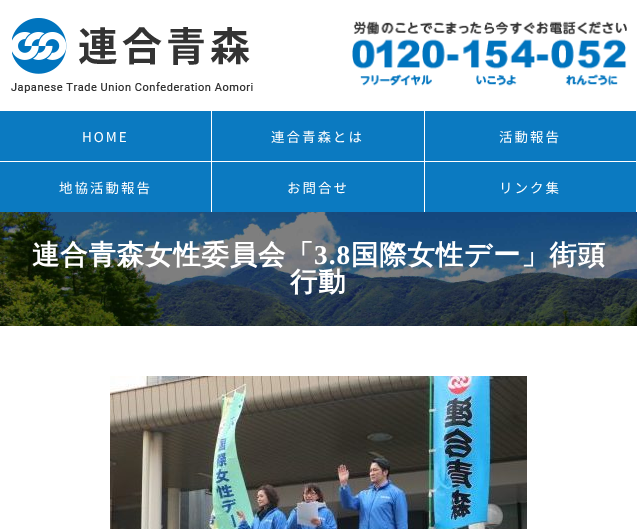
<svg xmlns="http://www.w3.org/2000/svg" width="637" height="529">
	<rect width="100%" height="100%" fill="#FFFFFF" />
	<image x="11" y="18" width="242" height="75" href="assets/img1.png" />
	<image x="352" y="21" width="275" height="65" href="assets/img2.png" />
	<rect x="0" y="111" width="636" height="101" fill="#0B7AC1" />
	<rect x="211" y="110" width="1" height="51" fill="#FFFFFF" />
	<text x="82" y="142" font-family="Noto Sans JP" font-size="13.5" letter-spacing="2" fill="#FFFFFF">HOME</text>
	<rect x="424" y="110" width="1" height="51" fill="#FFFFFF" />
	<g font-family="Noto Sans JP" font-size="13.5" letter-spacing="2" fill="#FFFFFF">
		<text x="271" y="142">連合青森とは</text>
		<text x="499" y="142">活動報告</text>
	</g>
	<rect x="0" y="161" width="637" height="1" fill="#FFFFFF" />
	<rect x="211" y="161" width="1" height="51" fill="#FFFFFF" />
	<text x="59" y="193" font-family="Noto Sans JP" font-size="13.5" letter-spacing="2" fill="#FFFFFF">地協活動報告</text>
	<rect x="424" y="161" width="1" height="51" fill="#FFFFFF" />
	<g font-family="Noto Sans JP" font-size="13.5" letter-spacing="2" fill="#FFFFFF">
		<text x="287" y="193">お問合せ</text>
		<text x="499" y="193">リンク集</text>
	</g>
	<image x="0" y="212" width="637" height="114" href="assets/img3.png" />
	<text x="32" y="264" font-family="WenQuanYi Zen Hei" font-size="27.25" font-weight="700" letter-spacing="1" fill="#FFFFFF">連合青森女性委員会「</text>
	<text x="314" y="264" font-family="Liberation Serif" font-size="27.25" font-weight="700" letter-spacing="1" fill="#FFFFFF">3.8</text>
	<g font-family="WenQuanYi Zen Hei" font-size="27.25" font-weight="700" letter-spacing="1" fill="#FFFFFF">
		<text x="351" y="264">国際女性デー」街頭</text>
		<text x="290" y="291">行動</text>
	</g>
	<image x="110" y="376" width="417" height="153" href="assets/img4.png" />
</svg>
